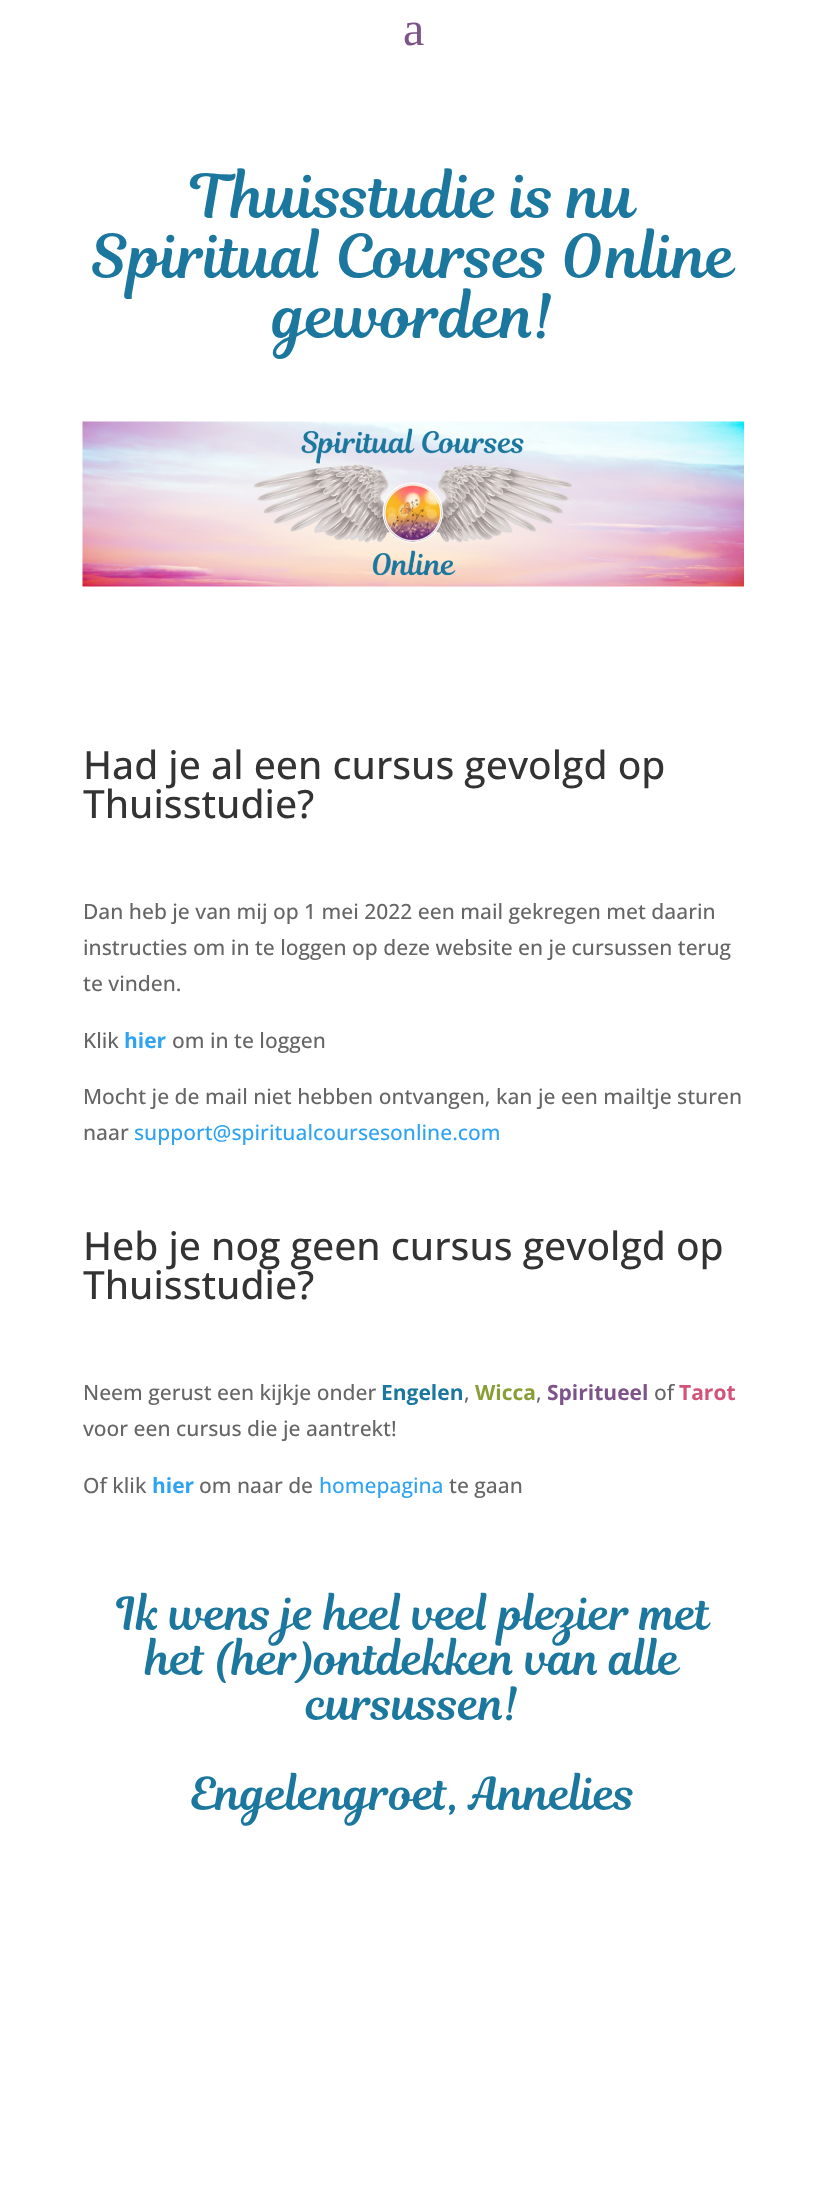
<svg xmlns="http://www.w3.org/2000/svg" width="826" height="2204">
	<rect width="100%" height="100%" fill="#FFFFFF" />
	<text x="403" y="45" font-family="Liberation Serif" font-size="48" fill="#7D548A">a</text>
	<g font-family="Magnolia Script" font-size="60" fill="#1B779E">
		<text x="191" y="218">Thuisstudie is nu</text>
		<text x="91" y="278">Spiritual Courses Online</text>
		<text x="274" y="338">geworden!</text>
	</g>
	<image x="82" y="421" width="662" height="166" href="assets/img1.png" />
	<g font-family="Open Sans" font-size="39" font-weight="500" fill="#333333">
		<text x="83" y="779">Had je al een cursus gevolgd op</text>
		<text x="83" y="818">Thuisstudie?</text>
	</g>
	<g font-family="Open Sans" font-size="21" font-weight="500" fill="#666666">
		<text x="83" y="919">Dan heb je van mij op 1 mei 2022 een mail gekregen met daarin</text>
		<text x="83" y="955">instructies om in te loggen op deze website en je cursussen terug</text>
		<text x="83" y="991">te vinden.</text>
		<text x="83" y="1048">Klik</text>
	</g>
	<text x="124" y="1048" font-family="Open Sans" font-size="21" font-weight="700" fill="#2EA3F2">hier</text>
	<g font-family="Open Sans" font-size="21" font-weight="500" fill="#666666">
		<text x="172" y="1048">om in te loggen</text>
		<text x="83" y="1104">Mocht je de mail niet hebben ontvangen, kan je een mailtje sturen</text>
		<text x="83" y="1140">naar</text>
	</g>
	<text x="134" y="1140" font-family="Open Sans" font-size="21" font-weight="500" fill="#2EA3F2">support@spiritualcoursesonline.com</text>
	<g font-family="Open Sans" font-size="39" font-weight="500" fill="#333333">
		<text x="83" y="1260">Heb je nog geen cursus gevolgd op</text>
		<text x="83" y="1299">Thuisstudie?</text>
	</g>
	<text x="83" y="1400" font-family="Open Sans" font-size="21" font-weight="500" fill="#666666">Neem gerust een kijkje onder</text>
	<text x="381" y="1400" font-family="Open Sans" font-size="21" font-weight="700" fill="#1B779E">Engelen</text>
	<text x="464" y="1400" font-family="Open Sans" font-size="21" font-weight="500" fill="#666666">,</text>
	<text x="475" y="1400" font-family="Open Sans" font-size="21" font-weight="700" fill="#899F35">Wicca</text>
	<text x="536" y="1400" font-family="Open Sans" font-size="21" font-weight="500" fill="#666666">,</text>
	<text x="547" y="1400" font-family="Open Sans" font-size="21" font-weight="700" fill="#7D548A">Spiritueel</text>
	<text x="654" y="1400" font-family="Open Sans" font-size="21" font-weight="500" fill="#666666">of</text>
	<text x="679" y="1400" font-family="Open Sans" font-size="21" font-weight="700" fill="#D25278">Tarot</text>
	<g font-family="Open Sans" font-size="21" font-weight="500" fill="#666666">
		<text x="83" y="1436">voor een cursus die je aantrekt!</text>
		<text x="83" y="1493">Of klik</text>
	</g>
	<text x="152" y="1493" font-family="Open Sans" font-size="21" font-weight="700" fill="#2EA3F2">hier</text>
	<text x="199" y="1493" font-family="Open Sans" font-size="21" font-weight="500" fill="#666666">om naar de</text>
	<text x="319" y="1493" font-family="Open Sans" font-size="21" font-weight="500" fill="#2EA3F2">homepagina</text>
	<text x="449" y="1493" font-family="Open Sans" font-size="21" font-weight="500" fill="#666666">te gaan</text>
	<g font-family="Magnolia Script" font-size="45" fill="#1B779E">
		<text x="117" y="1630">Ik wens je heel veel plezier met</text>
		<text x="146" y="1675">het (her)ontdekken van alle</text>
		<text x="307" y="1720">cursussen!</text>
		<text x="190" y="1810">Engelengroet, Annelies</text>
	</g>
</svg>
